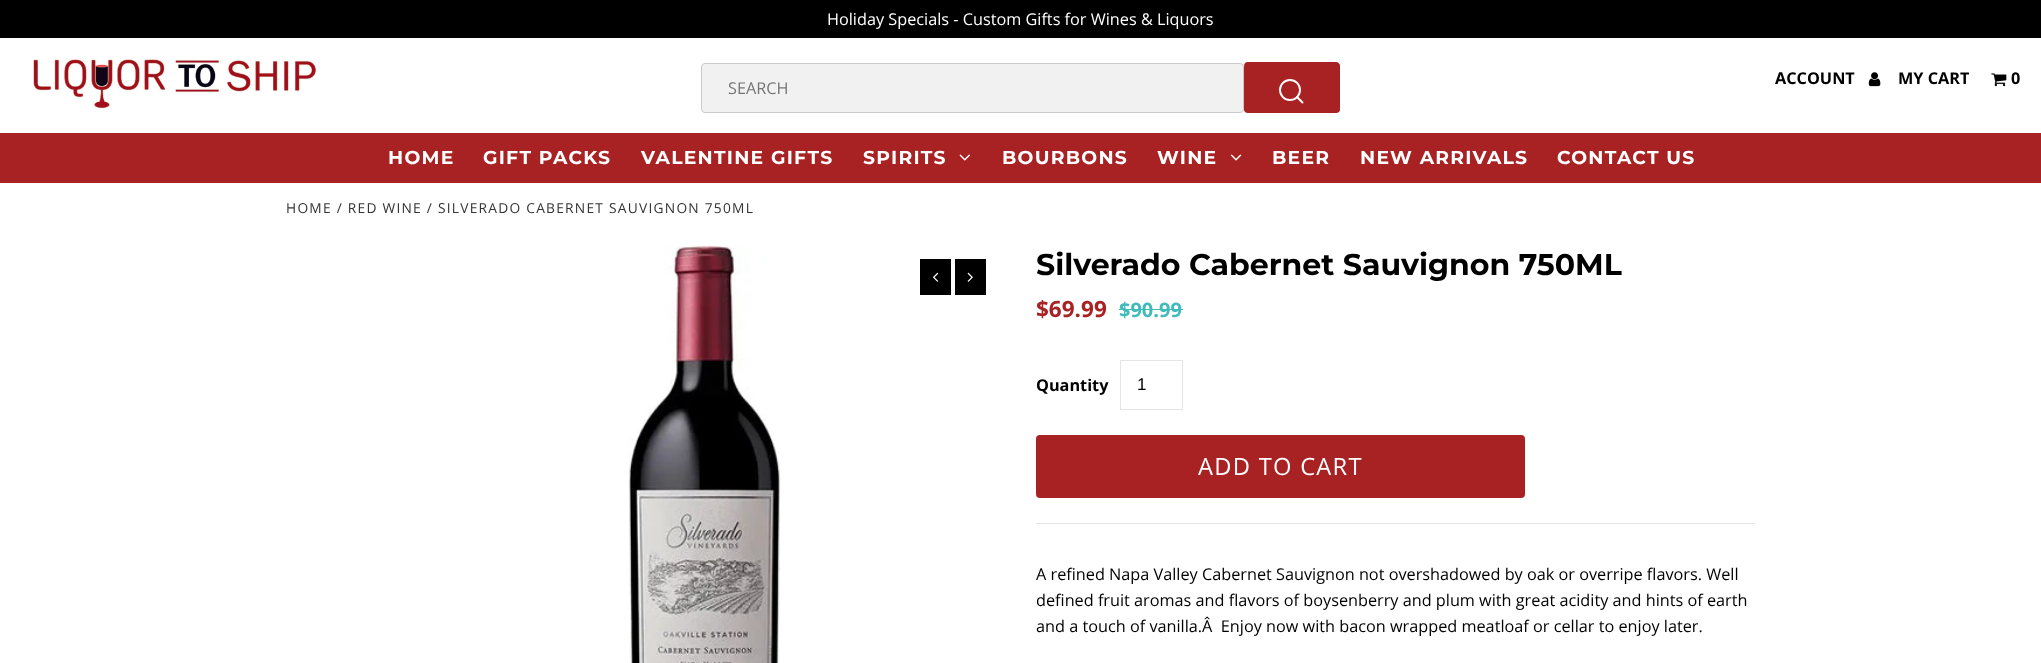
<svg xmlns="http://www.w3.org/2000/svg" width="2041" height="663">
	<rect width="100%" height="100%" fill="#FFFFFF" />
	<rect x="0" y="0" width="2041" height="38" fill="#000000" />
	<text x="827" y="25" font-family="Open Sans" font-size="16.25" fill="#FFFFFF">Holiday Specials - Custom Gifts for Wines &amp; Liquors</text>
	<image x="32" y="58" width="288" height="51" href="assets/img1.png" />
	<text x="1775" y="84" font-family="Open Sans" font-size="16.25" font-weight="700" fill="#000000">ACCOUNT</text>
	<image x="1868" y="72" width="13" height="15" href="assets/img2.png" />
	<text x="1898" y="84" font-family="Open Sans" font-size="16.25" font-weight="700" fill="#000000">MY CART</text>
	<image x="1991" y="73" width="16" height="14" href="assets/img3.png" />
	<text x="2011" y="84" font-family="Open Sans" font-size="16.25" font-weight="700" fill="#000000">0</text>
	<rect x="701.5" y="63.5" width="542" height="49" rx="3.5" fill="#F1F1F1" stroke="#CBC9C9" />
	<text x="728" y="94" font-family="Open Sans" font-size="16.25" fill="#757575">SEARCH</text>
	<rect x="1244" y="63" width="96" height="50" rx="4" fill="#A82123" />
	<path d="M1248 62H1336C1338 62 1340 64 1340 66V109C1340 111 1338 112 1336 112H1248C1245 112 1244 111 1244 109V66C1244 64 1245 62 1248 62ZM1248 64H1336C1338 64 1339 65 1339 66V109C1339 110 1338 111 1336 111H1248C1245 111 1244 110 1244 109V66C1244 65 1245 64 1248 64Z" fill="#A82123" fill-rule="evenodd" />
	<circle cx="1290" cy="90" r="10" fill="none" stroke="#FFFFFF" stroke-width="1.9" />
	<path d="M1302.5 102.5L1297 97" fill="none" stroke="#FFFFFF" stroke-width="1.9" stroke-linecap="round" stroke-linejoin="round" />
	<rect x="0" y="133" width="2041" height="50" fill="#A82123" />
	<g font-family="Montserrat" font-size="18.75" font-weight="700" letter-spacing="1.25" fill="#FFFFFF">
		<text x="388" y="164">HOME</text>
		<text x="483" y="164">GIFT PACKS</text>
		<text x="641" y="164">VALENTINE GIFTS</text>
		<text x="863" y="164">SPIRITS</text>
	</g>
	<image x="959" y="154" width="11" height="7" href="assets/img4.png" />
	<g font-family="Montserrat" font-size="18.75" font-weight="700" letter-spacing="1.25" fill="#FFFFFF">
		<text x="1002" y="164">BOURBONS</text>
		<text x="1157" y="164">WINE</text>
	</g>
	<image x="1230" y="154" width="12" height="7" href="assets/img5.png" />
	<g font-family="Montserrat" font-size="18.75" font-weight="700" letter-spacing="1.25" fill="#FFFFFF">
		<text x="1272" y="164">BEER</text>
		<text x="1360" y="164">NEW ARRIVALS</text>
		<text x="1557" y="164">CONTACT US</text>
	</g>
	<text x="286" y="213" font-family="Open Sans" font-size="13.75" letter-spacing="1.25" fill="#333333">HOME / RED WINE / SILVERADO CABERNET SAUVIGNON 750ML</text>
	<image x="628" y="246" width="153" height="417" href="assets/img6.png" />
	<rect x="920" y="259" width="31" height="36" fill="#000000" />
	<image x="933" y="272" width="6" height="10" href="assets/img7.png" />
	<rect x="955" y="259" width="31" height="36" fill="#000000" />
	<image x="967" y="272" width="6" height="10" href="assets/img8.png" />
	<text x="1036" y="275" font-family="Montserrat" font-size="30" font-weight="700" fill="#000000">Silverado Cabernet Sauvignon 750ML</text>
	<text x="1036" y="317" font-family="Open Sans" font-size="22.5" font-weight="700" fill="#A82123">$69.99</text>
	<text x="1119" y="317" font-family="Open Sans" font-size="20" font-weight="700" fill="#41BABA">$90.99</text>
	<rect x="1119" y="309" width="64" height="1" fill="#41BABA" />
	<rect x="1036" y="523" width="719" height="1" fill="#E5E5E5" />
	<text x="1036" y="391" font-family="Open Sans" font-size="16.25" font-weight="700" fill="#000000">Quantity</text>
	<rect x="1120.5" y="360.5" width="62" height="49" fill="none" stroke="#E5E5E5" />
	<text x="1137" y="390" font-family="Liberation Sans" font-size="17" fill="#000000">1</text>
	<rect x="1036" y="435" width="489" height="63" rx="4" fill="#A82123" />
	<text x="1198" y="475" font-family="Open Sans" font-size="23.75" letter-spacing="1.25" fill="#FFFFFF">ADD TO CART</text>
	<g font-family="Open Sans" font-size="16.25" fill="#000000">
		<text x="1036" y="580">A refined Napa Valley Cabernet Sauvignon not overshadowed by oak or overripe flavors. Well</text>
		<text x="1036" y="606">defined fruit aromas and flavors of boysenberry and plum with great acidity and hints of earth</text>
		<text x="1036" y="632" xml:space="preserve">and a touch of vanilla.Â  Enjoy now with bacon wrapped meatloaf or cellar to enjoy later.</text>
	</g>
</svg>
